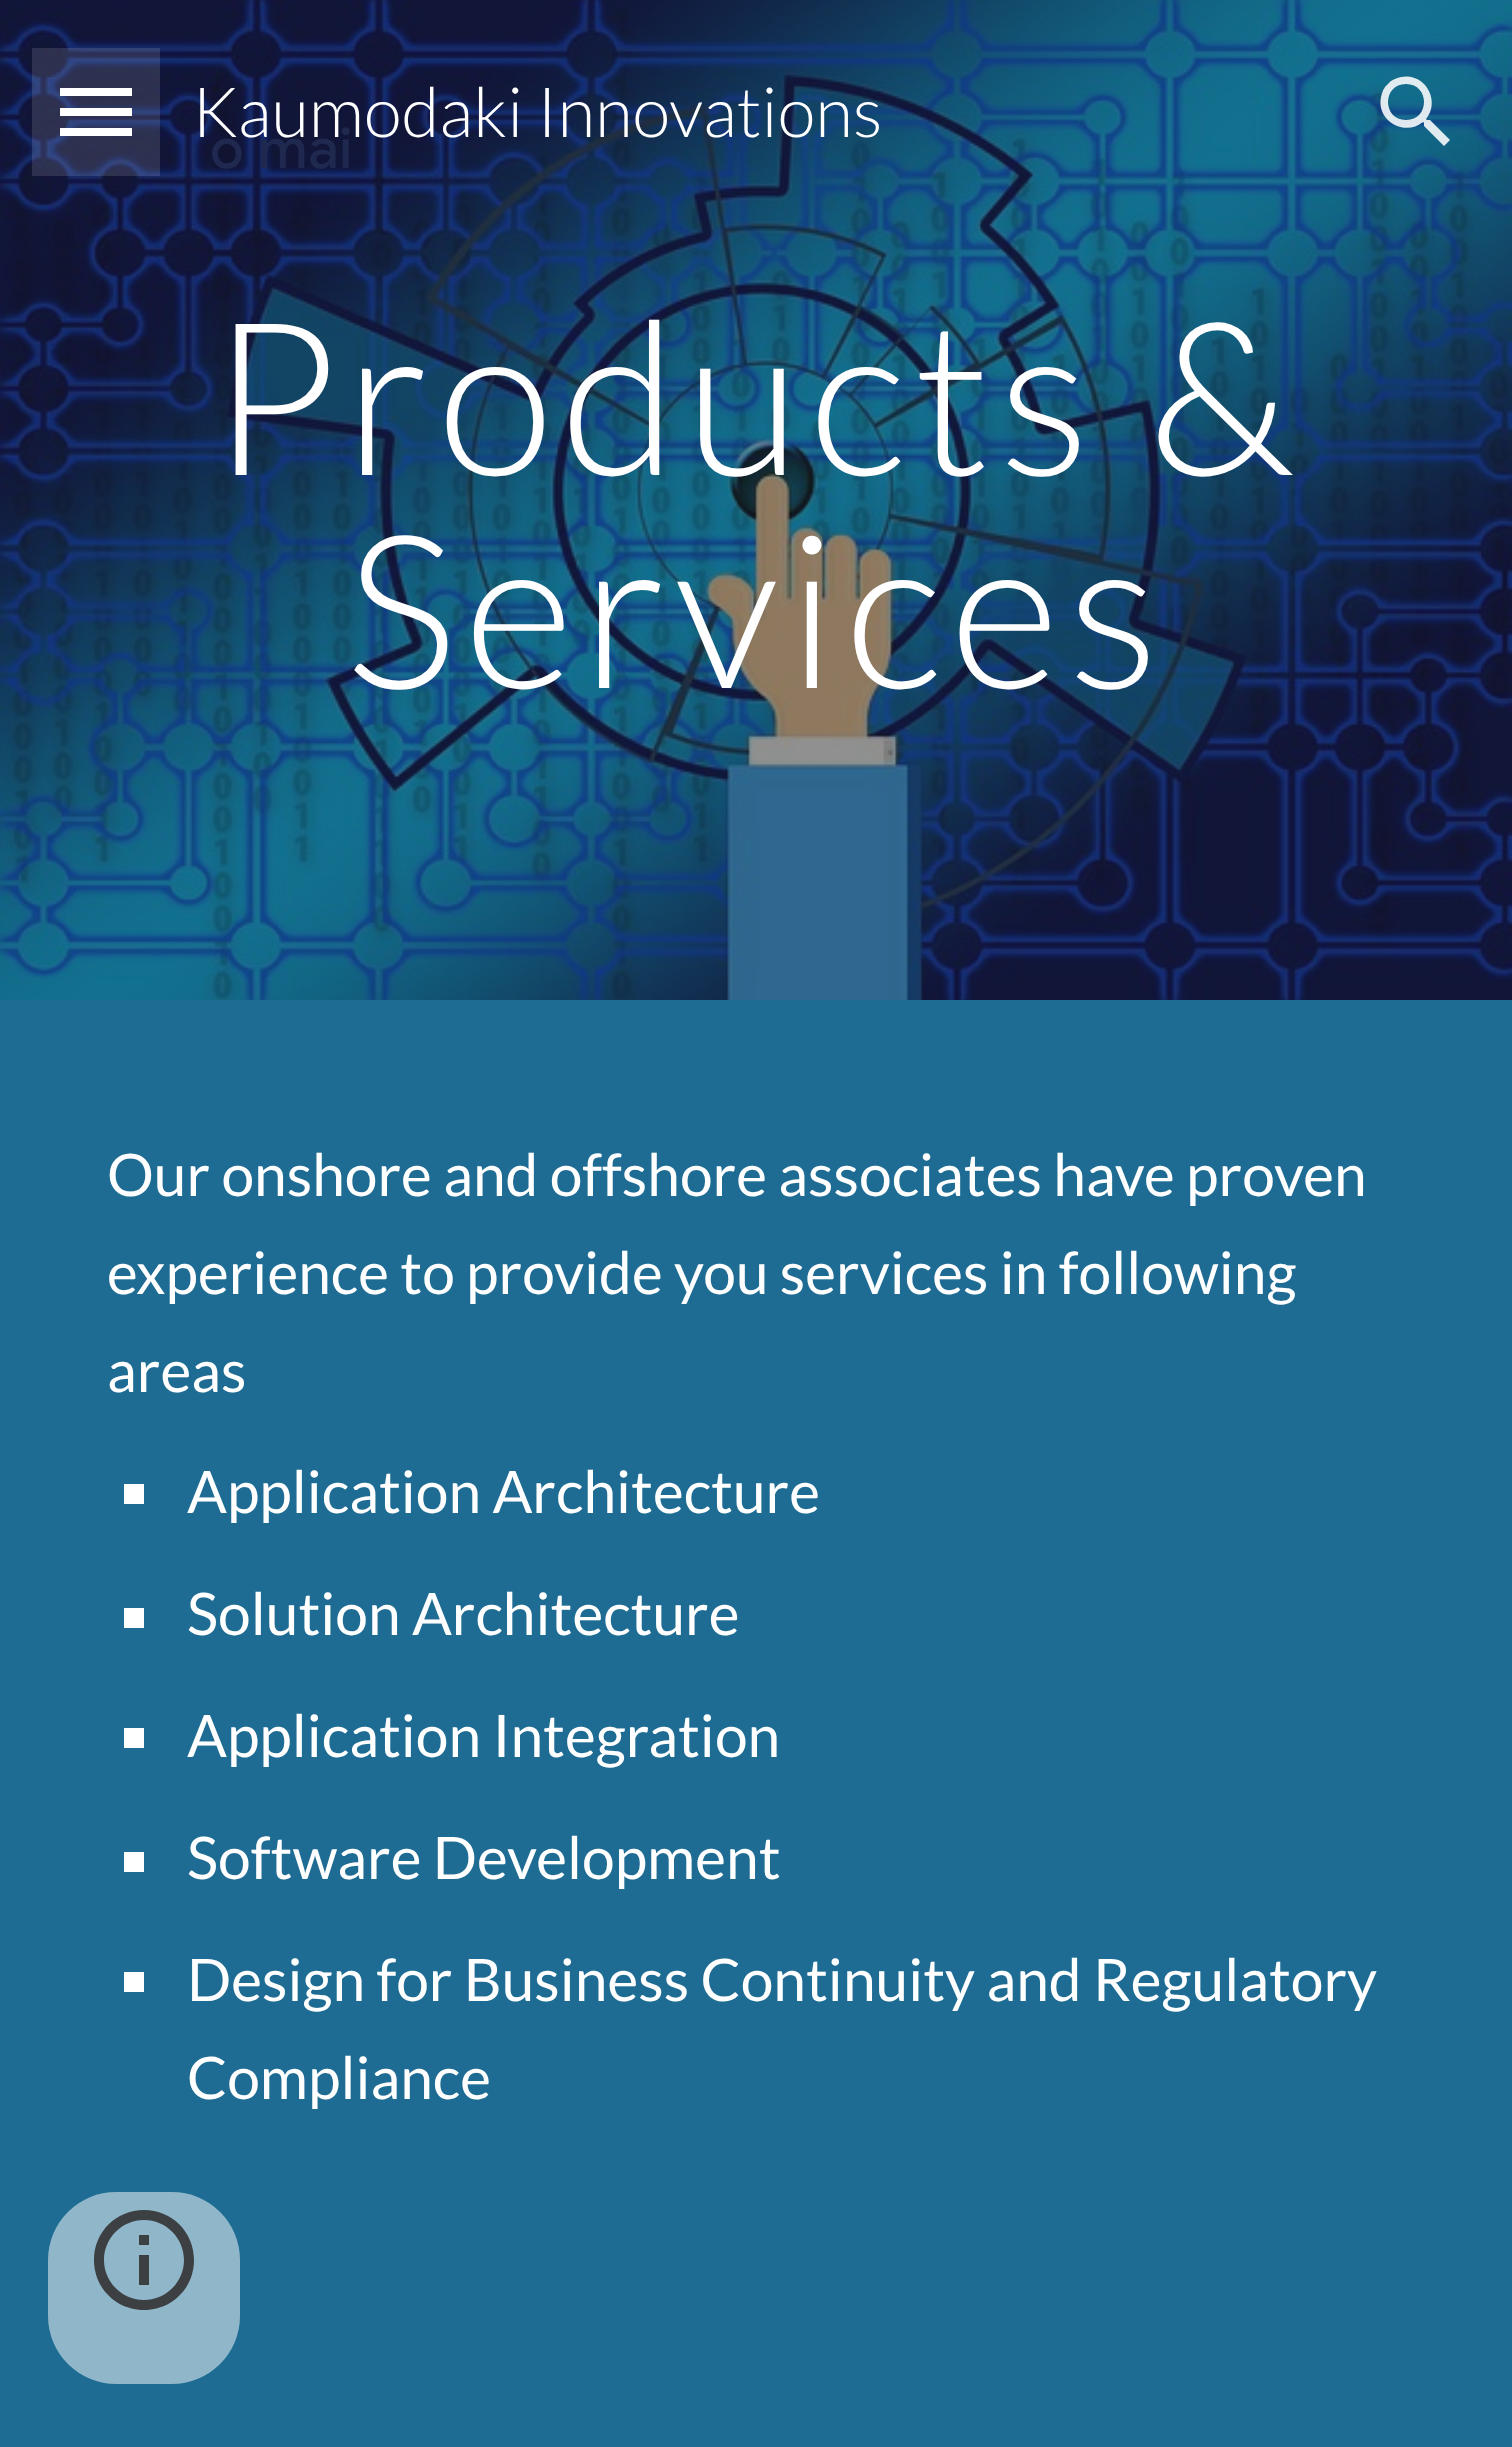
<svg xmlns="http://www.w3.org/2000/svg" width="1512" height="2447">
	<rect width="100%" height="100%" fill="#FFFFFF" />
	<image x="0" y="0" width="1512" height="1000" href="assets/img1.png" />
	<rect x="60" y="88" width="72" height="8" fill="#FFFFFF" />
	<rect x="60" y="108" width="72" height="8" fill="#FFFFFF" />
	<rect x="60" y="128" width="72" height="8" fill="#FFFFFF" />
	<rect x="32" y="48" width="128" height="128" fill="#FFFFFF" fill-opacity="0.12" />
	<text x="192" y="137" font-family="Lato" font-size="69.25" font-weight="300" fill="#FFFFFF">Kaumodaki Innovations</text>
	<path d="M1430 120H1427L1426 119C1441 101 1425 72 1401 77C1396 78 1391 80 1388 84C1384 87 1382 92 1381 97C1376 121 1405 137 1423 122L1424 123V126L1444 146L1450 140ZM1406 120C1382 120 1382 84 1406 84C1430 84 1430 120 1406 120Z" fill="#FFFFFF" fill-opacity="0.87" />
	<g font-family="Lato" font-size="213.5" font-weight="300" letter-spacing="8" fill="#FFFFFF">
		<text x="210" y="475">Products &amp;</text>
		<text x="345" y="688">Services</text>
	</g>
	<rect x="0" y="1000" width="1512" height="1447" fill="#1E6C93" />
	<g font-family="Lato" font-size="58.7" fill="#FFFFFF">
		<text x="107" y="1196">Our onshore and offshore associates have proven</text>
		<text x="107" y="1294">experience to provide you services in following</text>
		<text x="107" y="1392">areas</text>
	</g>
	<rect x="124" y="1484" width="20" height="20" fill="#FFFFFF" />
	<text x="187" y="1513" font-family="Lato" font-size="58.7" fill="#FFFFFF">Application Architecture</text>
	<rect x="124" y="1608" width="20" height="20" fill="#FFFFFF" />
	<text x="187" y="1635" font-family="Lato" font-size="58.7" fill="#FFFFFF">Solution Architecture</text>
	<rect x="124" y="1728" width="20" height="20" fill="#FFFFFF" />
	<text x="187" y="1757" font-family="Lato" font-size="58.7" fill="#FFFFFF">Application Integration</text>
	<rect x="124" y="1852" width="20" height="20" fill="#FFFFFF" />
	<text x="187" y="1879" font-family="Lato" font-size="58.7" fill="#FFFFFF">Software Development</text>
	<rect x="124" y="1972" width="20" height="20" fill="#FFFFFF" />
	<g font-family="Lato" font-size="58.7" fill="#FFFFFF">
		<text x="187" y="2001">Design for Business Continuity and Regulatory</text>
		<text x="187" y="2099">Compliance</text>
	</g>
	<rect x="48" y="2192" width="192" height="192" rx="68" fill="#8FB6C9" />
	<path d="M139 2285H149V2255H139ZM144 2210C116 2210 94 2232 94 2260C94 2288 116 2310 144 2310C172 2310 194 2288 194 2260C194 2232 172 2210 144 2210ZM144 2300C122 2300 104 2282 104 2260C104 2238 122 2220 144 2220C166 2220 184 2238 184 2260C184 2282 166 2300 144 2300ZM139 2245H149V2235H139Z" fill="#3C4043" />
	<text x="210" y="168" font-family="Google Sans" font-size="56" font-weight="500" letter-spacing="0.5" fill="#1F284E">o mai</text>
</svg>
